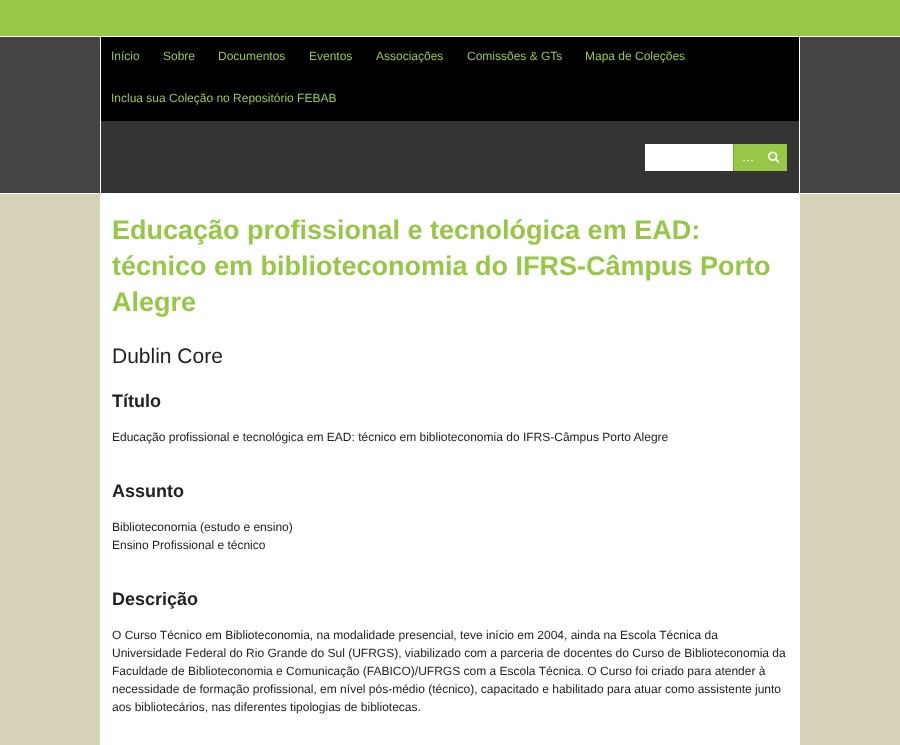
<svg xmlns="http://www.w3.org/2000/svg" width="900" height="745">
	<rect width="100%" height="100%" fill="#D5D2B8" />
	<rect x="0" y="0" width="900" height="36" fill="#97C747" />
	<rect x="0" y="37" width="900" height="156" fill="#444444" />
	<rect x="0" y="36" width="900" height="1" fill="#FFFFFF" />
	<rect x="0" y="193" width="900" height="1" fill="#FFFFFF" />
	<rect x="101" y="121" width="698" height="72" fill="#333333" />
	<rect x="799" y="37" width="1" height="156" fill="#FFFFFF" />
	<rect x="100" y="37" width="1" height="156" fill="#FFFFFF" />
	<rect x="101" y="37" width="698" height="84" fill="#000000" />
	<g font-family="Liberation Sans" font-size="12" fill="#97C747">
		<text x="111" y="60">Início</text>
		<text x="163" y="60">Sobre</text>
		<text x="218" y="60">Documentos</text>
		<text x="309" y="60">Eventos</text>
		<text x="376" y="60">Associações</text>
		<text x="467" y="60">Comissões &amp; GTs</text>
		<text x="585" y="60">Mapa de Coleções</text>
		<text x="111" y="102">Inclua sua Coleção no Repositório FEBAB</text>
	</g>
	<rect x="645" y="144" width="88" height="27" fill="#FFFFFF" />
	<rect x="734" y="144" width="53" height="27" fill="#97C747" />
	<rect x="733" y="144" width="1" height="27" fill="#799F39" />
	<text x="742" y="161" font-family="Liberation Serif" font-size="12" fill="#FFFFFF">…</text>
	<image x="768" y="151" width="12" height="12" href="assets/img1.png" />
	<rect x="100" y="194" width="700" height="551" fill="#FFFFFF" />
	<g font-family="Liberation Sans" font-size="27" font-weight="700" fill="#97C747">
		<text x="112" y="239">Educação profissional e tecnológica em EAD:</text>
		<text x="112" y="275">técnico em biblioteconomia do IFRS-Câmpus Porto</text>
		<text x="112" y="311">Alegre</text>
	</g>
	<text x="112" y="363" font-family="Liberation Sans" font-size="21" fill="#222222">Dublin Core</text>
	<text x="112" y="407" font-family="Liberation Sans" font-size="18" font-weight="700" fill="#222222">Título</text>
	<text x="112" y="441" font-family="Liberation Sans" font-size="12" fill="#222222">Educação profissional e tecnológica em EAD: técnico em biblioteconomia do IFRS-Câmpus Porto Alegre</text>
	<text x="112" y="497" font-family="Liberation Sans" font-size="18" font-weight="700" fill="#222222">Assunto</text>
	<g font-family="Liberation Sans" font-size="12" fill="#222222">
		<text x="112" y="531">Biblioteconomia (estudo e ensino)</text>
		<text x="112" y="549">Ensino Profissional e técnico</text>
	</g>
	<text x="112" y="605" font-family="Liberation Sans" font-size="18" font-weight="700" fill="#222222">Descrição</text>
	<g font-family="Liberation Sans" font-size="12" fill="#222222">
		<text x="112" y="639">O Curso Técnico em Biblioteconomia, na modalidade presencial, teve início em 2004, ainda na Escola Técnica da</text>
		<text x="112" y="657">Universidade Federal do Rio Grande do Sul (UFRGS), viabilizado com a parceria de docentes do Curso de Biblioteconomia da</text>
		<text x="112" y="675">Faculdade de Biblioteconomia e Comunicação (FABICO)/UFRGS com a Escola Técnica. O Curso foi criado para atender à</text>
		<text x="112" y="693">necessidade de formação profissional, em nível pós-médio (técnico), capacitado e habilitado para atuar como assistente junto</text>
		<text x="112" y="711">aos bibliotecários, nas diferentes tipologias de bibliotecas.</text>
	</g>
</svg>
